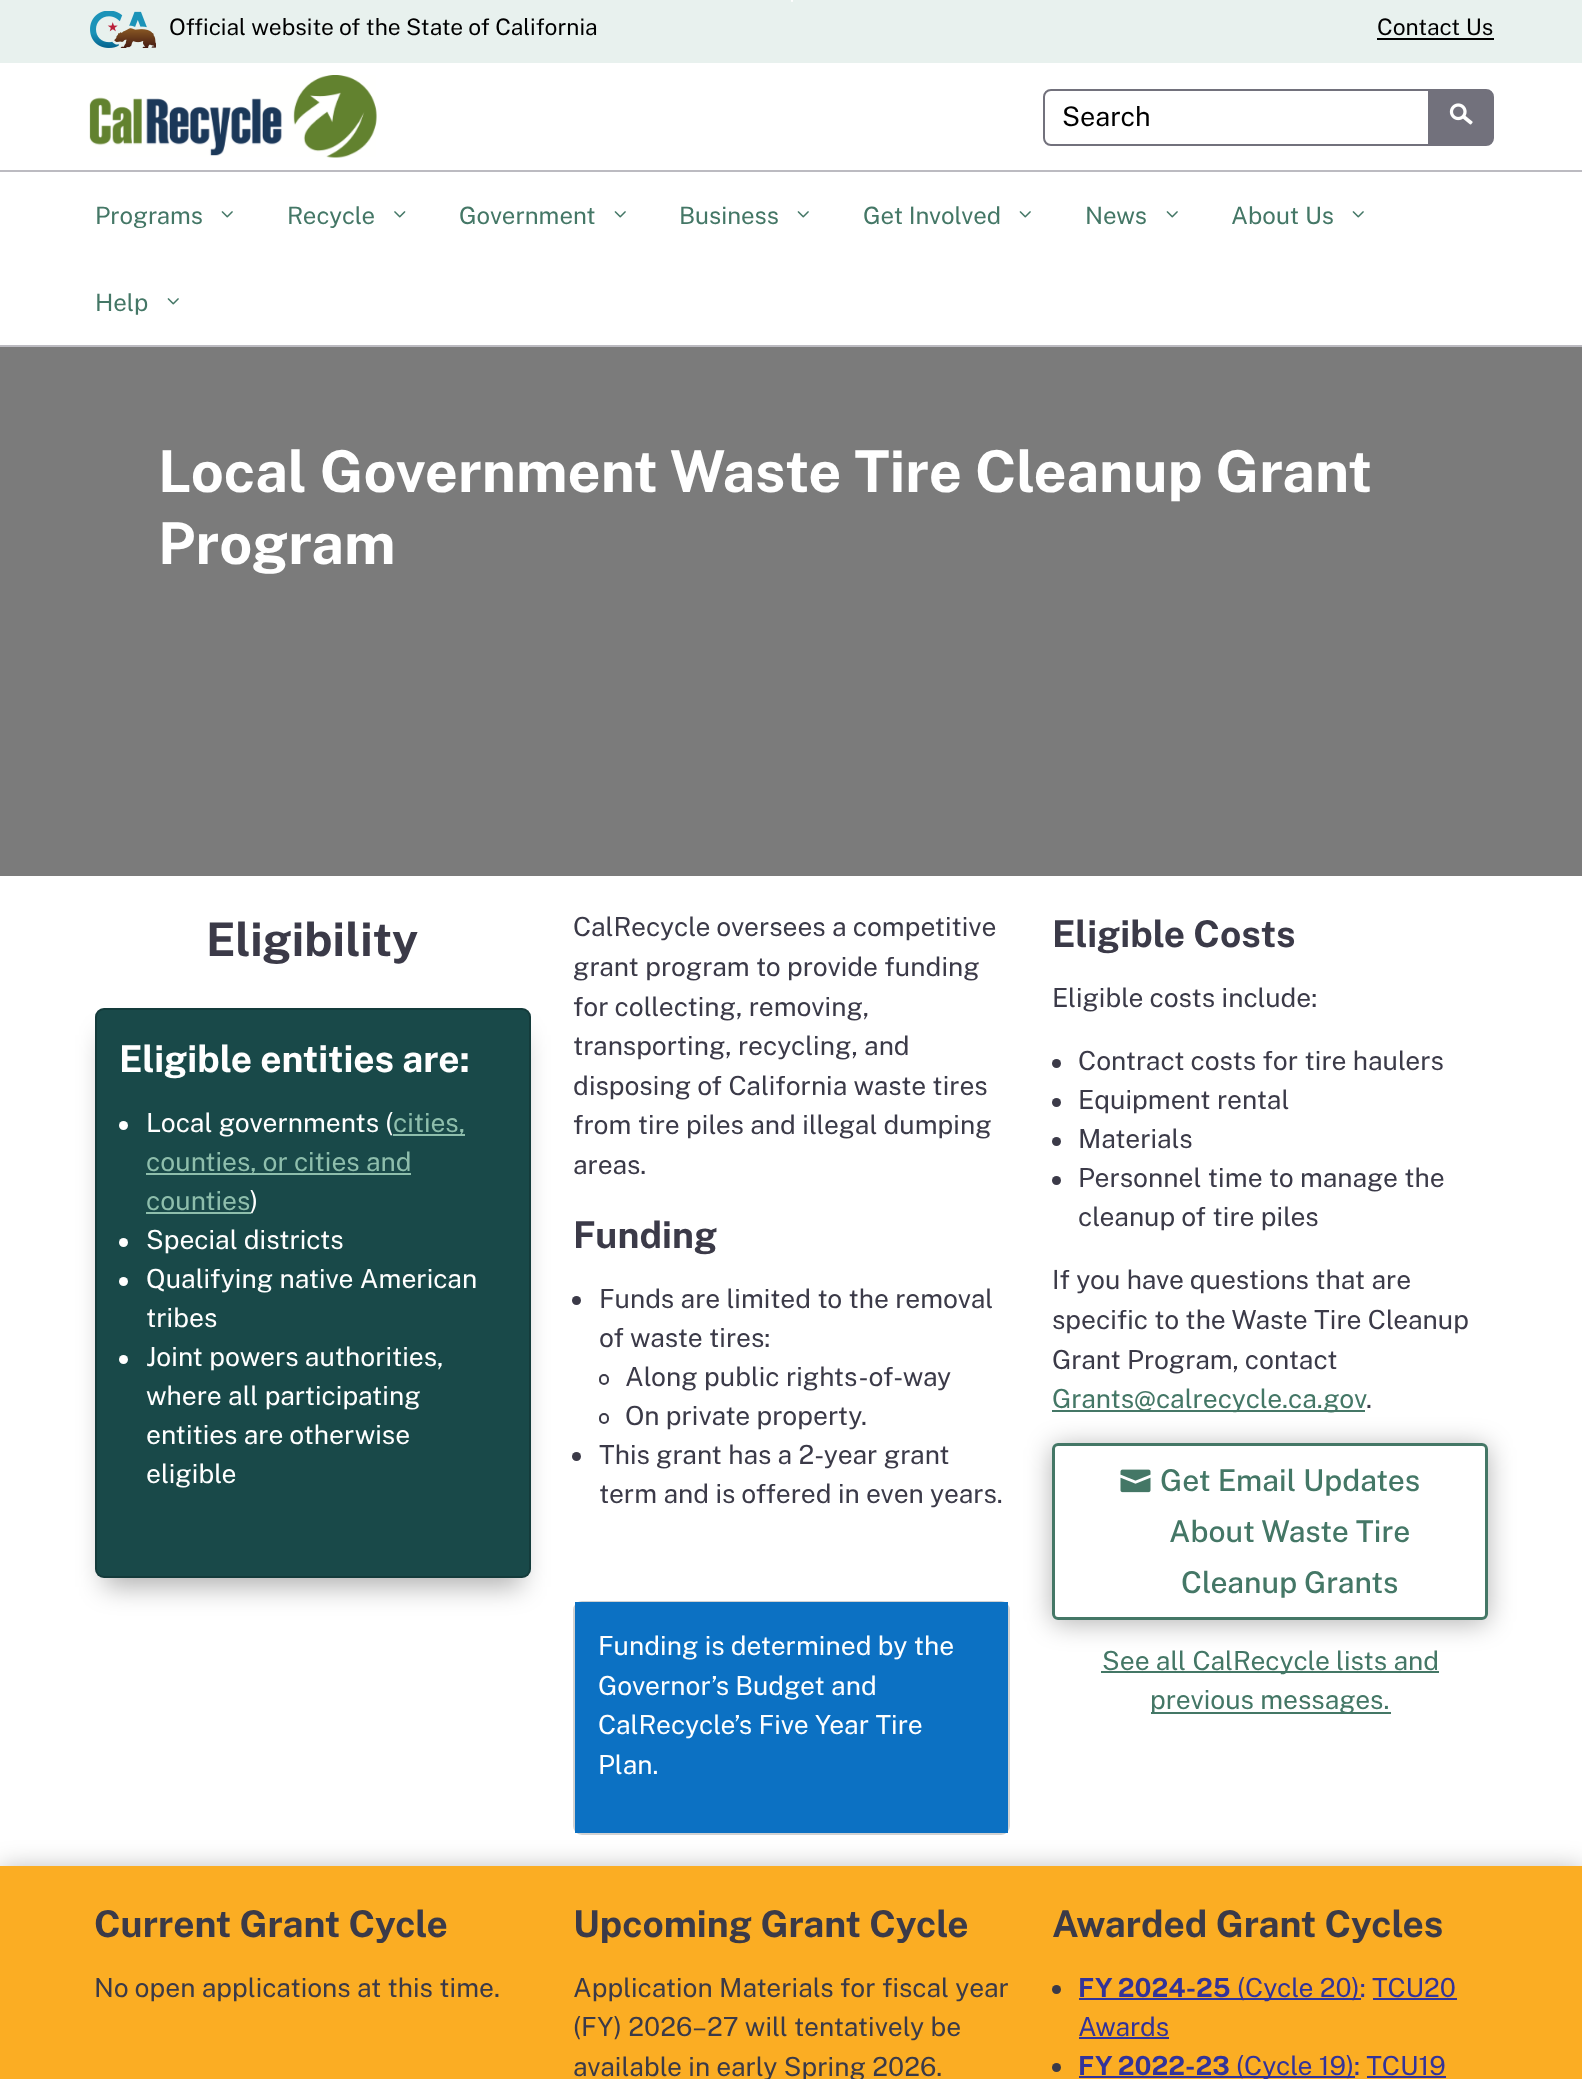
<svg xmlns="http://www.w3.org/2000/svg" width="1582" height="2079">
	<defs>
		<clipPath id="clip1"><path d="M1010 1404H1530V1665H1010ZM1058 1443H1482C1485.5 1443 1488 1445.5 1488 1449V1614C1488 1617.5 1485.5 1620 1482 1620H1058C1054.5 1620 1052 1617.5 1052 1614V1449C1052 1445.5 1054.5 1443 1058 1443Z" clip-rule="evenodd" /></clipPath>
	</defs>
	<rect width="100%" height="100%" fill="#FFFFFF" />
	<rect x="0" y="0" width="1582" height="63" fill="#E8F1EE" />
	<path d="M791 0H793V1C793 1.5 792.5 2 792 2C791.5 2 791 1.5 791 1Z" fill="#FFFFFF" />
	<image x="90" y="11" width="66" height="37" href="assets/img1.png" />
	<g font-family="Public Sans" font-size="22.75" fill="#000000">
		<text x="169" y="35">Official website of the State of California</text>
		<text x="1377" y="35">Contact Us</text>
	</g>
	<rect x="1377" y="38" width="117" height="2" fill="#000000" />
	<rect x="0" y="170" width="1582" height="2" fill="#BCBBC1" />
	<image x="89" y="75" width="288" height="83" href="assets/img2.png" />
	<path d="M1429 90H1486C1490 90 1493 93 1493 97V138C1493 142 1490 145 1486 145H1429Z" fill="#72717C" stroke="#72717C" stroke-width="2" />
	<path d="M1051 90H1429V145H1051C1047 145 1044 142 1044 138V97C1044 93 1047 90 1051 90Z" fill="none" stroke="#72717C" stroke-width="2" />
	<text x="1062" y="126" font-family="Public Sans" font-size="27" fill="#000000">Search</text>
	<image x="1449" y="103" width="24" height="22" href="assets/img3.png" />
	<rect x="0" y="345" width="1582" height="2" fill="#BCBBC1" />
	<text x="95" y="224" font-family="Public Sans" font-size="24" fill="#447766">Programs</text>
	<image x="221" y="211" width="12" height="7" href="assets/img4.png" />
	<text x="287" y="224" font-family="Public Sans" font-size="24" fill="#447766">Recycle</text>
	<image x="394" y="211" width="12" height="7" href="assets/img5.png" />
	<text x="459" y="224" font-family="Public Sans" font-size="24" fill="#447766">Government</text>
	<image x="614" y="211" width="12" height="7" href="assets/img4.png" />
	<text x="679" y="224" font-family="Public Sans" font-size="24" fill="#447766">Business</text>
	<image x="797" y="211" width="12" height="7" href="assets/img4.png" />
	<text x="863" y="224" font-family="Public Sans" font-size="24" fill="#447766">Get Involved</text>
	<image x="1019" y="211" width="12" height="7" href="assets/img4.png" />
	<text x="1085" y="224" font-family="Public Sans" font-size="24" fill="#447766">News</text>
	<image x="1166" y="211" width="12" height="7" href="assets/img4.png" />
	<text x="1231" y="224" font-family="Public Sans" font-size="24" fill="#447766">About Us</text>
	<image x="1352" y="211" width="12" height="7" href="assets/img4.png" />
	<text x="95" y="311" font-family="Public Sans" font-size="24" fill="#447766">Help</text>
	<image x="167" y="298" width="12" height="7" href="assets/img4.png" />
	<rect x="0" y="347" width="1582" height="529" fill="#7B7B7B" />
	<g font-family="Public Sans" font-size="57.6" font-weight="700" fill="#FFFFFF">
		<text x="158" y="492">Local Government Waste Tire Cleanup Grant</text>
		<text x="158" y="564">Program</text>
	</g>
	<text x="206" y="956" font-family="Public Sans" font-size="46.5" font-weight="700" fill="#3B3A48">Eligibility</text>
	<rect x="104" y="1035" width="418" height="552" fill="#000000" fill-opacity="0.3" filter="blur(13.5px)" />
	<rect x="95" y="1008" width="436" height="570" rx="9" fill="#194949" />
	<rect x="96" y="1009" width="434" height="568" rx="8" fill="none" stroke="#000000" stroke-opacity="0.18" stroke-width="2" />
	<text x="119" y="1072" font-family="Public Sans" font-size="37" font-weight="700" fill="#FFFFFF">Eligible entities are:</text>
	<circle cx="123.5" cy="1125.5" r="4.5" fill="#FFFFFF" />
	<text x="146" y="1132" font-family="Public Sans" font-size="26.4" fill="#FFFFFF">Local governments (</text>
	<rect x="393" y="1134" width="72" height="2" fill="#8EBEAC" />
	<text x="393" y="1132" font-family="Public Sans" font-size="26.4" fill="#8EBEAC">cities,</text>
	<rect x="146" y="1173" width="265" height="2" fill="#8EBEAC" />
	<g font-family="Public Sans" font-size="26.4" fill="#8EBEAC">
		<text x="146" y="1171">counties, or cities and</text>
		<text x="146" y="1210">counties</text>
	</g>
	<rect x="146" y="1212" width="105" height="2" fill="#8EBEAC" />
	<text x="250" y="1210" font-family="Public Sans" font-size="26.4" fill="#FFFFFF">)</text>
	<circle cx="123.5" cy="1242.5" r="4.5" fill="#FFFFFF" />
	<text x="146" y="1249" font-family="Public Sans" font-size="26.4" fill="#FFFFFF">Special districts</text>
	<circle cx="123.5" cy="1281.5" r="4.5" fill="#FFFFFF" />
	<g font-family="Public Sans" font-size="26.4" fill="#FFFFFF">
		<text x="146" y="1288">Qualifying native American</text>
		<text x="146" y="1327">tribes</text>
	</g>
	<circle cx="123.5" cy="1359.5" r="4.5" fill="#FFFFFF" />
	<g font-family="Public Sans" font-size="26.4" fill="#FFFFFF">
		<text x="146" y="1366">Joint powers authorities,</text>
		<text x="146" y="1405">where all participating</text>
		<text x="146" y="1444">entities are otherwise</text>
		<text x="146" y="1483">eligible</text>
	</g>
	<g font-family="Public Sans" font-size="26.4" fill="#3B3A48">
		<text x="573" y="936">CalRecycle oversees a competitive</text>
		<text x="573" y="976">grant program to provide funding</text>
		<text x="573" y="1016">for collecting, removing,</text>
		<text x="573" y="1055">transporting, recycling, and</text>
		<text x="573" y="1095">disposing of California waste tires</text>
		<text x="573" y="1134">from tire piles and illegal dumping</text>
		<text x="573" y="1174">areas.</text>
	</g>
	<text x="573" y="1248" font-family="Public Sans" font-size="37" font-weight="700" fill="#3B3A48">Funding</text>
	<circle cx="576.5" cy="1300.5" r="4.5" fill="#3B3A48" />
	<g font-family="Public Sans" font-size="26.4" fill="#3B3A48">
		<text x="599" y="1308">Funds are limited to the removal</text>
		<text x="599" y="1347">of waste tires:</text>
	</g>
	<rect x="600" y="1375" width="8" height="9" rx="4" fill="none" stroke="#3B3A48" stroke-width="2" />
	<text x="625" y="1386" font-family="Public Sans" font-size="26.4" fill="#3B3A48">Along public rights-of-way</text>
	<rect x="600" y="1414" width="8" height="9" rx="4" fill="none" stroke="#3B3A48" stroke-width="2" />
	<text x="625" y="1425" font-family="Public Sans" font-size="26.4" fill="#3B3A48">On private property.</text>
	<circle cx="576.5" cy="1456.5" r="4.5" fill="#3B3A48" />
	<g font-family="Public Sans" font-size="26.4" fill="#3B3A48">
		<text x="599" y="1464">This grant has a 2-year grant</text>
		<text x="599" y="1503">term and is offered in even years.</text>
	</g>
	<rect x="574" y="1602" width="435" height="232" rx="8" fill="none" stroke="#D2D2D2" stroke-width="2" />
	<rect x="575" y="1602" width="433" height="231" fill="#0C71C3" />
	<g font-family="Public Sans" font-size="26.4" fill="#FFFFFF">
		<text x="598" y="1655">Funding is determined by the</text>
		<text x="598" y="1695">Governor’s Budget and</text>
		<text x="598" y="1734">CalRecycle’s Five Year Tire</text>
		<text x="598" y="1774">Plan.</text>
	</g>
	<text x="1052" y="947" font-family="Public Sans" font-size="37" font-weight="700" fill="#3B3A48">Eligible Costs</text>
	<text x="1052" y="1007" font-family="Public Sans" font-size="26.4" fill="#3B3A48">Eligible costs include:</text>
	<circle cx="1056.5" cy="1063.5" r="4.5" fill="#3B3A48" />
	<text x="1078" y="1070" font-family="Public Sans" font-size="26.4" fill="#3B3A48">Contract costs for tire haulers</text>
	<circle cx="1056.5" cy="1102.5" r="4.5" fill="#3B3A48" />
	<text x="1078" y="1109" font-family="Public Sans" font-size="26.4" fill="#3B3A48">Equipment rental</text>
	<circle cx="1056.5" cy="1141.5" r="4.5" fill="#3B3A48" />
	<text x="1078" y="1148" font-family="Public Sans" font-size="26.4" fill="#3B3A48">Materials</text>
	<circle cx="1056.5" cy="1180.5" r="4.5" fill="#3B3A48" />
	<g font-family="Public Sans" font-size="26.4" fill="#3B3A48">
		<text x="1078" y="1187">Personnel time to manage the</text>
		<text x="1078" y="1226">cleanup of tire piles</text>
		<text x="1052" y="1289">If you have questions that are</text>
		<text x="1052" y="1329">specific to the Waste Tire Cleanup</text>
		<text x="1052" y="1369">Grant Program, contact</text>
	</g>
	<rect x="1052" y="1410" width="313" height="2" fill="#447766" />
	<text x="1052" y="1408" font-family="Public Sans" font-size="26.4" fill="#447766">Grants@calrecycle.ca.gov</text>
	<text x="1366" y="1408" font-family="Public Sans" font-size="26.4" fill="#3B3A48">.</text>
	<g clip-path="url(#clip1)">
		<rect x="1052" y="1446" width="436" height="177" rx="6" fill="#000000" fill-opacity="0.3" filter="blur(13.5px)" />
	</g>
	<rect x="1053.5" y="1444.5" width="433" height="174" rx="4.5" fill="none" stroke="#447766" stroke-width="3" />
	<image x="1120" y="1469" width="31" height="24" href="assets/img6.png" />
	<g font-family="Public Sans" font-size="30" font-weight="500" fill="#447766">
		<text x="1160" y="1491">Get Email Updates</text>
		<text x="1169" y="1542">About Waste Tire</text>
		<text x="1181" y="1593">Cleanup Grants</text>
	</g>
	<rect x="1101" y="1671" width="338" height="2" fill="#447766" />
	<text x="1102" y="1670" font-family="Public Sans" font-size="26.4" fill="#447766">See all CalRecycle lists and</text>
	<rect x="1151" y="1712" width="240" height="2" fill="#447766" />
	<text x="1150" y="1709" font-family="Public Sans" font-size="26.4" fill="#447766">previous messages.</text>
	<rect x="0" y="1869" width="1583" height="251" fill="#000000" fill-opacity="0.3" filter="blur(13.5px)" />
	<rect x="0" y="1866" width="1582" height="213" fill="#FBAD23" />
	<text x="94" y="1937" font-family="Public Sans" font-size="37" font-weight="700" fill="#3B3A48">Current Grant Cycle</text>
	<text x="94" y="1997" font-family="Public Sans" font-size="26.4" fill="#3B3A48">No open applications at this time.</text>
	<text x="573" y="1937" font-family="Public Sans" font-size="37" font-weight="700" fill="#3B3A48">Upcoming Grant Cycle</text>
	<g font-family="Public Sans" font-size="26.4" fill="#3B3A48">
		<text x="573" y="1997">Application Materials for fiscal year</text>
		<text x="573" y="2036">(FY) 2026–27 will tentatively be</text>
		<text x="573" y="2076">available in early Spring 2026.</text>
	</g>
	<text x="1052" y="1937" font-family="Public Sans" font-size="37" font-weight="700" fill="#3B3A48">Awarded Grant Cycles</text>
	<circle cx="1056.5" cy="1989.5" r="4.5" fill="#3B3A48" />
	<text x="1078" y="1997" font-family="Public Sans" font-size="26.4" font-weight="700" fill="#333399">FY 2024-25</text>
	<rect x="1079" y="1998" width="282" height="2" fill="#333399" />
	<text x="1237" y="1997" font-family="Public Sans" font-size="26.4" fill="#333399">(Cycle 20): TCU20</text>
	<rect x="1373" y="1998" width="84" height="2" fill="#333399" />
	<text x="1078" y="2036" font-family="Public Sans" font-size="26.4" fill="#333399">Awards</text>
	<rect x="1079" y="2037" width="90" height="2" fill="#333399" />
	<circle cx="1056.5" cy="2067.5" r="4.5" fill="#3B3A48" />
	<text x="1078" y="2075" font-family="Public Sans" font-size="26.4" font-weight="700" fill="#333399">FY 2022-23</text>
	<rect x="1079" y="2076" width="276" height="2" fill="#333399" />
	<text x="1236" y="2075" font-family="Public Sans" font-size="26.4" fill="#333399">(Cycle 19): TCU19</text>
	<rect x="1367" y="2076" width="79" height="2" fill="#333399" />
</svg>
